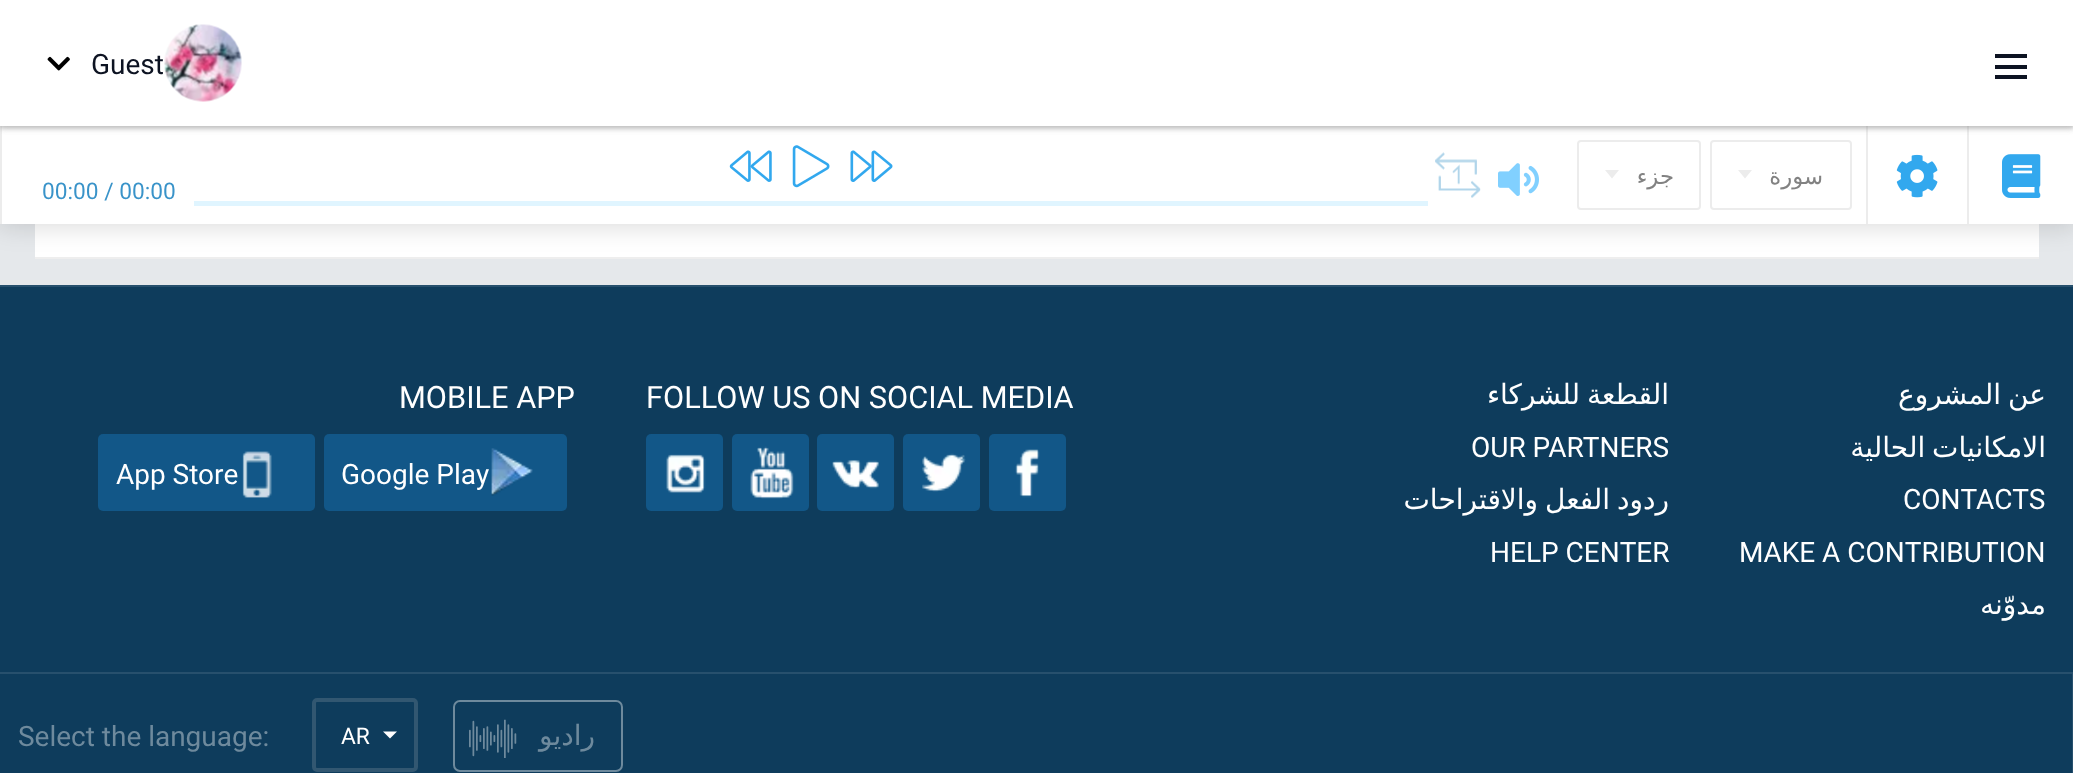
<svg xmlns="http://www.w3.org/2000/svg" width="2073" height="773">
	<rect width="100%" height="100%" fill="#E5E8EB" />
	<rect x="35" y="224" width="2004" height="33" fill="#FFFFFF" />
	<rect x="35" y="257" width="2004" height="2" fill="#EEEEEE" />
	<rect x="-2" y="124" width="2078" height="102" fill="#000000" fill-opacity="0.15" filter="blur(13px)" />
	<rect x="2" y="126" width="2071" height="98" fill="#FFFFFF" />
	<rect x="0" y="126" width="2" height="98" fill="#ECECEC" />
	<rect x="1967" y="126" width="2" height="98" fill="#ECECEC" />
	<rect x="1866" y="126" width="2" height="98" fill="#ECECEC" />
	<rect x="0" y="2" width="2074" height="126" fill="#000000" fill-opacity="0.2" filter="blur(2px)" />
	<rect x="0" y="2" width="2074" height="126" fill="#AAAAAA" fill-opacity="0.5" filter="blur(3.5px)" />
	<rect x="0" y="0" width="2073" height="126" fill="#FFFFFF" />
	<image x="47" y="56" width="23" height="15" href="assets/img1.png" />
	<text x="91" y="74" font-family="Roboto" font-size="28" fill="#0D1322">Guest</text>
	<image x="164" y="24" width="78" height="78" href="assets/img2.png" />
	<rect x="1995" y="54" width="32" height="4" fill="#0D1322" />
	<rect x="1995" y="65" width="32" height="4" fill="#0D1322" />
	<rect x="1995" y="75" width="32" height="4" fill="#0D1322" />
	<text x="42" y="199" font-family="Roboto" font-size="22.75" fill="#3993C9">00:00 / 00:00</text>
	<image x="729" y="150" width="43" height="32" href="assets/img3.png" />
	<image x="792" y="145" width="38" height="43" href="assets/img4.png" />
	<image x="850" y="150" width="43" height="32" href="assets/img5.png" />
	<rect x="194" y="201" width="1234" height="5" fill="#E0F5FF" />
	<image x="1435" y="152" width="46" height="46" href="assets/img6.png" />
	<image x="1498" y="163" width="41" height="33" href="assets/img7.png" />
	<rect x="1578" y="141" width="122" height="68" rx="3" fill="none" stroke="#ECECEC" stroke-width="2" />
	<path d="M1605 170H1619L1612 178.5Z" fill="#ECECEC" />
	<text x="1674" y="184" font-family="DejaVu Sans" font-size="22.75" direction="rtl" fill="#828282">جزء</text>
	<rect x="1711" y="141" width="140" height="68" rx="3" fill="none" stroke="#ECECEC" stroke-width="2" />
	<path d="M1738 170H1752L1745 178.5Z" fill="#ECECEC" />
	<text x="1823" y="184" font-family="DejaVu Sans" font-size="22.75" direction="rtl" fill="#828282">سورة</text>
	<image x="1896" y="154" width="42" height="44" href="assets/img8.png" />
	<image x="2002" y="154" width="39" height="44" href="assets/img9.png" />
	<rect x="0" y="287" width="2073" height="385" fill="#0E3C5C" />
	<rect x="0" y="285" width="2073" height="2" fill="#27506D" />
	<text x="399" y="408" font-family="Roboto" font-size="30.75" fill="#FFFFFF">MOBILE APP</text>
	<rect x="98" y="434" width="217" height="77" rx="5" fill="#125788" />
	<text x="116" y="484" font-family="Roboto" font-size="28" fill="#FFFFFF">App Store</text>
	<image x="242" y="451" width="30" height="47" href="assets/img10.png" />
	<rect x="324" y="434" width="243" height="77" rx="5" fill="#125788" />
	<text x="341" y="484" font-family="Roboto" font-size="28" fill="#FFFFFF">Google Play</text>
	<image x="491" y="448" width="42" height="48" href="assets/img11.png" />
	<text x="646" y="408" font-family="Roboto" font-size="30.75" fill="#FFFFFF">FOLLOW US ON SOCIAL MEDIA</text>
	<rect x="646" y="434" width="77" height="77" rx="5" fill="#125788" />
	<image x="666" y="454" width="40" height="39" href="assets/img12.png" />
	<rect x="732" y="434" width="77" height="77" rx="5" fill="#125788" />
	<image x="750" y="446" width="44" height="53" href="assets/img13.png" />
	<rect x="817" y="434" width="77" height="77" rx="5" fill="#125788" />
	<image x="832" y="460" width="47" height="29" href="assets/img14.png" />
	<rect x="903" y="434" width="77" height="77" rx="5" fill="#125788" />
	<image x="922" y="453" width="44" height="39" href="assets/img15.png" />
	<rect x="989" y="434" width="77" height="77" rx="5" fill="#125788" />
	<image x="1015" y="449" width="25" height="49" href="assets/img16.png" />
	<text x="1669" y="404" word-spacing="-2" font-family="DejaVu Sans" font-size="28" direction="rtl" fill="#FFFFFF">القطعة للشركاء</text>
	<text x="1471" y="457" font-family="Roboto" font-size="28" fill="#FFFFFF">OUR PARTNERS</text>
	<text x="1669" y="509" word-spacing="-2" font-family="DejaVu Sans" font-size="28" direction="rtl" fill="#FFFFFF">ردود الفعل والاقتراحات</text>
	<text x="1490" y="562" font-family="Roboto" font-size="28" fill="#FFFFFF">HELP CENTER</text>
	<g font-family="DejaVu Sans" font-size="28" direction="rtl" fill="#FFFFFF">
		<text x="2046" y="404" word-spacing="-2">عن المشروع</text>
		<text x="2046" y="457" word-spacing="-2">الامكانيات الحالية</text>
	</g>
	<g font-family="Roboto" font-size="28" fill="#FFFFFF">
		<text x="1903" y="509">CONTACTS</text>
		<text x="1739" y="562">MAKE A CONTRIBUTION</text>
	</g>
	<text x="2046" y="614" font-family="DejaVu Sans" font-size="28" direction="rtl" fill="#FFFFFF">مدوّنه</text>
	<rect x="0" y="674" width="2072" height="99" fill="#0E3C5C" />
	<rect x="0" y="672" width="2073" height="2" fill="#27506D" />
	<rect x="2072" y="674" width="1" height="99" fill="#27506D" />
	<text x="18" y="746" font-family="Roboto" font-size="28" fill="#6E8A9D">Select the language:</text>
	<rect x="314" y="700" width="102" height="70" rx="3" fill="none" stroke="#325771" stroke-width="4" />
	<text x="341" y="744" font-family="Roboto" font-size="22.75" fill="#FFFFFF">AR</text>
	<path d="M383 731.5H397L390 738.5Z" fill="#FFFFFF" />
	<rect x="454" y="701" width="168" height="70" rx="6" fill="none" stroke="#6E8A9D" stroke-width="2" />
	<image x="469" y="719" width="48" height="39" href="assets/img17.png" />
	<text x="595" y="745" font-family="DejaVu Sans" font-size="28" direction="rtl" fill="#6E8A9D">راديو</text>
</svg>
